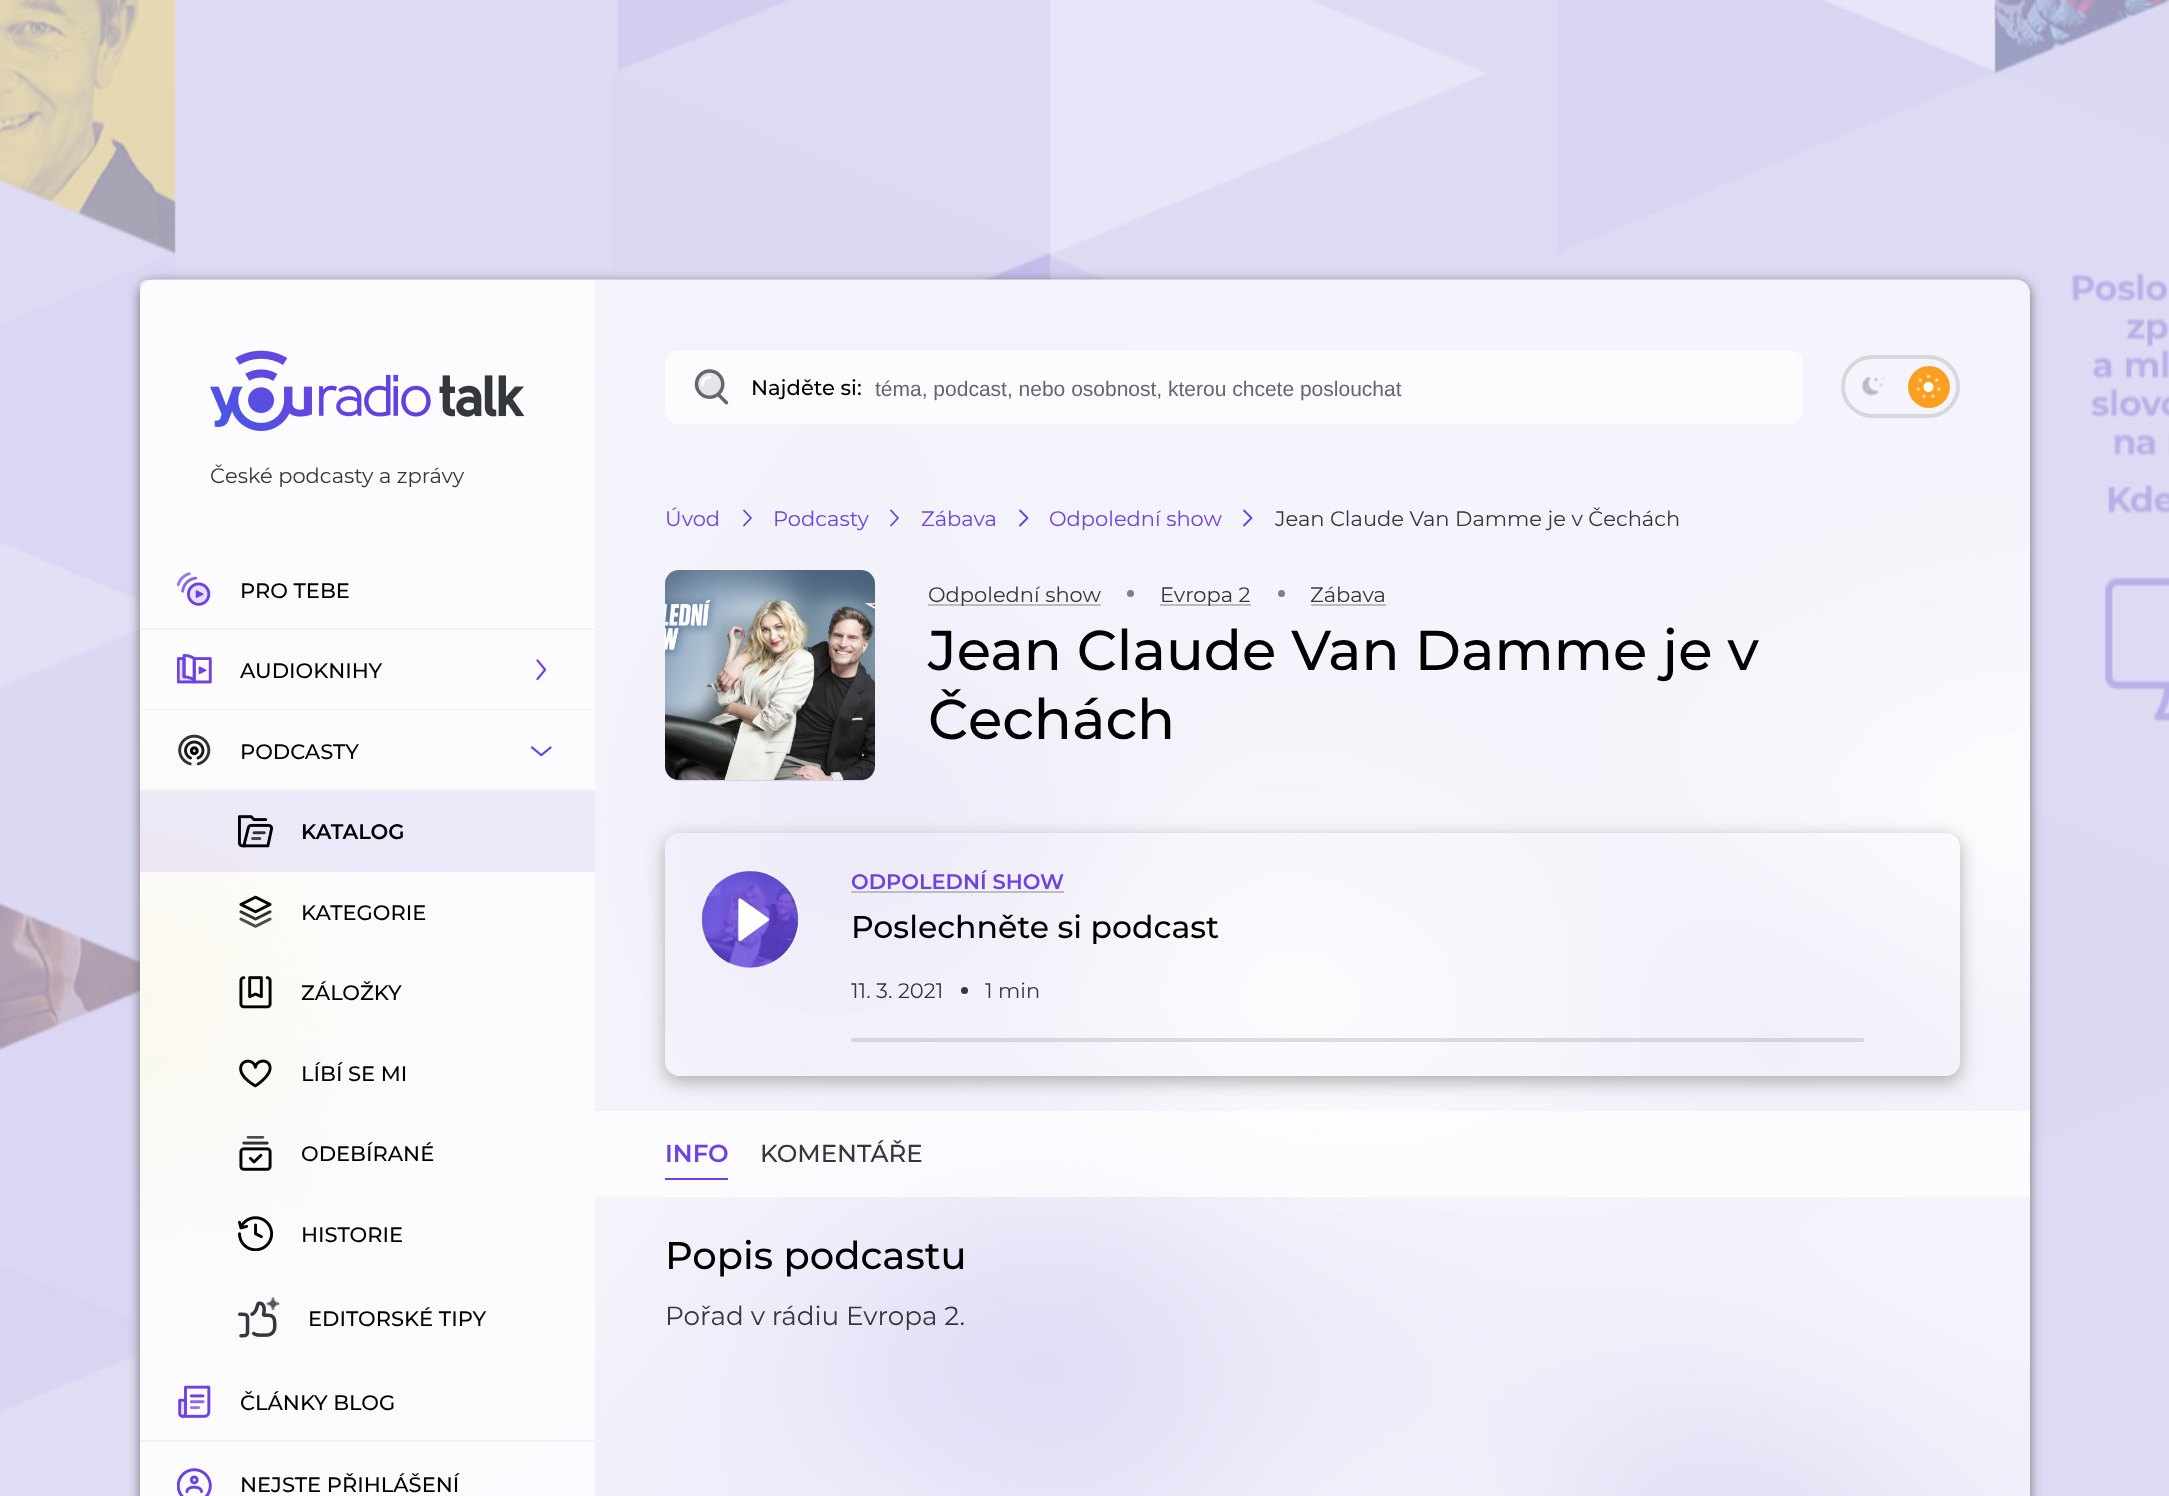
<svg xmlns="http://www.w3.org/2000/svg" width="2169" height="1496">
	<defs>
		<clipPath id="clip1"><path d="M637 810H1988V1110H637ZM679 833H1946C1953.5 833 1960 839.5 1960 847V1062C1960 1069.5 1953.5 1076 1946 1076H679C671.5 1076 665 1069.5 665 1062V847C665 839.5 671.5 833 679 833Z" clip-rule="evenodd" /></clipPath>
		<clipPath id="clip2"><rect x="702" y="872" width="96" height="96" /></clipPath>
	</defs>
	<rect width="100%" height="100%" fill="#FFFFFF" />
	<image x="0" y="0" width="2169" height="1496" href="assets/img1.png" />
	<rect x="140" y="282" width="1890" height="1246" rx="14" fill="#6F6F6F" filter="blur(6px)" />
	<image x="140" y="279" width="1890" height="1217" href="assets/img2.png" />
	<path d="M147 280H595V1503H147C143 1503 140 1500 140 1496V287C140 283 143 280 147 280Z" fill="#FFFFFF" fill-opacity="0.7" />
	<image x="210" y="350" width="315" height="81" href="assets/img3.png" />
	<text x="210" y="483" font-family="Montserrat" font-size="21" fill="#34383C">České podcasty a zprávy</text>
	<path d="M595 630H140L142 628H593Z" fill="#F2F2F4" />
	<image x="177" y="572" width="34" height="34" href="assets/img4.png" />
	<text x="240" y="598" font-family="Montserrat" font-size="21" font-weight="500" fill="#000000">PRO TEBE</text>
	<path d="M595 710H140L142 709H593Z" fill="#F2F2F4" />
	<image x="177" y="654" width="35" height="30" href="assets/img5.png" />
	<text x="240" y="678" font-family="Montserrat" font-size="21" font-weight="500" fill="#000000">AUDIOKNIHY</text>
	<image x="536" y="659" width="11" height="22" href="assets/img6.png" />
	<path d="M595 791H140L142 789H593Z" fill="#34383C" fill-opacity="0.05" />
	<image x="178" y="734" width="33" height="32" href="assets/img7.png" />
	<text x="240" y="759" font-family="Montserrat" font-size="21" font-weight="500" fill="#000000">PODCASTY</text>
	<image x="530" y="746" width="22" height="11" href="assets/img8.png" />
	<rect x="140" y="791" width="455" height="81" fill="#6E41E0" fill-opacity="0.1" />
	<image x="238" y="815" width="35" height="33" href="assets/img9.png" />
	<text x="301" y="839" font-family="Montserrat" font-size="21" font-weight="600" fill="#000000">KATALOG</text>
	<image x="239" y="895" width="33" height="33" href="assets/img10.png" />
	<text x="301" y="920" font-family="Montserrat" font-size="21" font-weight="500" fill="#000000">KATEGORIE</text>
	<image x="239" y="976" width="33" height="33" href="assets/img11.png" />
	<text x="301" y="1000" font-family="Montserrat" font-size="21" font-weight="500" fill="#000000">ZÁLOŽKY</text>
	<image x="239" y="1059" width="33" height="29" href="assets/img12.png" />
	<text x="301" y="1081" font-family="Montserrat" font-size="21" font-weight="500" fill="#000000">LÍBÍ SE MI</text>
	<image x="239" y="1136" width="33" height="35" href="assets/img13.png" />
	<text x="301" y="1161" font-family="Montserrat" font-size="21" font-weight="500" fill="#000000">ODEBÍRANÉ</text>
	<image x="238" y="1216" width="35" height="35" href="assets/img14.png" />
	<text x="301" y="1242" font-family="Montserrat" font-size="21" font-weight="500" fill="#000000">HISTORIE</text>
	<image x="238" y="1297" width="42" height="41" href="assets/img15.png" />
	<text x="308" y="1326" font-family="Montserrat" font-size="21" font-weight="500" fill="#000000">EDITORSKÉ TIPY</text>
	<path d="M595 1442H140L142 1440H593Z" fill="#F1F1F4" />
	<image x="178" y="1385" width="33" height="33" href="assets/img16.png" />
	<text x="240" y="1410" font-family="Montserrat" font-size="21" font-weight="500" fill="#000000">ČLÁNKY BLOG</text>
	<image x="177" y="1468" width="35" height="28" href="assets/img17.png" />
	<text x="240" y="1492" font-family="Montserrat" font-size="21" font-weight="500" fill="#000000">NEJSTE PŘIHLÁŠENÍ</text>
	<rect x="665" y="350" width="1138" height="74" rx="14" fill="#FFFFFF" fill-opacity="0.75" />
	<image x="694" y="369" width="35" height="36" href="assets/img18.png" />
	<text x="751" y="395" font-family="Montserrat" font-size="21" font-weight="500" fill="#000000">Najděte si:</text>
	<text x="875" y="396" font-family="Liberation Sans" font-size="21" fill="#626670">téma, podcast, nebo osobnost, kterou chcete poslouchat</text>
	<rect x="1843" y="357" width="115" height="59" rx="29.5" fill="none" stroke="#D7D8DB" stroke-width="4" />
	<circle cx="1929" cy="387" r="21" fill="#FAA021" />
	<image x="1862" y="376" width="23" height="20" href="assets/img19.png" />
	<image x="1916" y="375" width="25" height="23" href="assets/img20.png" />
	<text x="665" y="526" font-family="Montserrat" font-size="21" fill="#6E41E0">Úvod</text>
	<path d="M744 510.5L751 518L744 525.5" fill="none" stroke="#6141DF" stroke-width="1.8" stroke-linecap="round" stroke-linejoin="round" />
	<text x="773" y="526" font-family="Montserrat" font-size="21" fill="#6E41E0">Podcasty</text>
	<path d="M891 510.5L898 518L891 525.5" fill="none" stroke="#6141DF" stroke-width="1.8" stroke-linecap="round" stroke-linejoin="round" />
	<text x="921" y="526" font-family="Montserrat" font-size="21" fill="#6E41E0">Zábava</text>
	<path d="M1020 510.5L1027.5 518L1020 525.5" fill="none" stroke="#6141DF" stroke-width="1.8" stroke-linecap="round" stroke-linejoin="round" />
	<text x="1049" y="526" font-family="Montserrat" font-size="21" fill="#6E41E0">Odpolední show</text>
	<path d="M1244 510.5L1251.5 518L1244 525.5" fill="none" stroke="#6141DF" stroke-width="1.8" stroke-linecap="round" stroke-linejoin="round" />
	<text x="1275" y="526" font-family="Montserrat" font-size="21" fill="#34383C">Jean Claude Van Damme je v Čechách</text>
	<rect x="665" y="571" width="210" height="210" rx="14" fill="#6E41E0" fill-opacity="0.2" />
	<image x="665" y="570" width="210" height="210" href="assets/img21.png" />
	<rect x="928" y="604" width="173" height="2" fill="#BCBCBC" />
	<text x="928" y="602" font-family="Montserrat" font-size="21" fill="#34383C">Odpolední show</text>
	<circle cx="1130.5" cy="593.5" r="3.5" fill="#808080" />
	<rect x="1160" y="604" width="91" height="2" fill="#BCBCBC" />
	<text x="1160" y="602" font-family="Montserrat" font-size="21" fill="#34383C">Evropa 2</text>
	<circle cx="1281.5" cy="593.5" r="3.5" fill="#808080" />
	<text x="1310" y="602" font-family="Montserrat" font-size="21" fill="#34383C">Zábava</text>
	<rect x="1311" y="604" width="75" height="2" fill="#BCBCBC" />
	<g font-family="Montserrat" font-size="56" font-weight="500" fill="#000000">
		<text x="928" y="670">Jean Claude Van Damme je v</text>
		<text x="928" y="739">Čechách</text>
	</g>
	<g clip-path="url(#clip1)">
		<rect x="665" y="838" width="1295" height="244" rx="14" fill="#AFAFAF" filter="blur(9px)" />
	</g>
	<circle cx="750" cy="920" r="48" fill="#6E41E0" fill-opacity="0.2" />
	<image x="701" y="871" width="97" height="97" href="assets/img22.png" />
	<g clip-path="url(#clip2)">
		<circle cx="750" cy="919.5" r="48" fill="#6141DF" fill-opacity="0.8" />
	</g>
	<path d="M767.5 919.5L740 939.5V900Z" fill="#FFFFFF" stroke="#FFFFFF" stroke-width="3.3" stroke-linecap="round" stroke-linejoin="round" />
	<text x="851" y="889" font-family="Montserrat" font-size="21" font-weight="600" fill="#6E41E0">ODPOLEDNÍ SHOW</text>
	<rect x="851" y="891" width="213" height="2" fill="#BCBCBC" />
	<text x="851" y="938" font-family="Montserrat" font-size="31.5" font-weight="500" fill="#000000">Poslechněte si podcast</text>
	<text x="851" y="998" font-family="Montserrat" font-size="21" fill="#34383C">11. 3. 2021</text>
	<circle cx="964.5" cy="990.5" r="3.5" fill="#34383C" />
	<text x="985" y="998" font-family="Montserrat" font-size="21" fill="#34383C">1 min</text>
	<rect x="851" y="1038" width="1013" height="4" rx="2" fill="#626670" fill-opacity="0.2" />
	<rect x="595" y="1111" width="1435" height="86" fill="#FFFFFF" fill-opacity="0.7" />
	<rect x="665" y="1178" width="63" height="2" fill="#6E41E0" />
	<text x="665" y="1162" font-family="Montserrat" font-size="24.5" font-weight="600" fill="#6E41E0">INFO</text>
	<text x="760" y="1162" font-family="Montserrat" font-size="24.5" font-weight="500" fill="#34383C">KOMENTÁŘE</text>
	<text x="665" y="1269" font-family="Montserrat" font-size="38.5" font-weight="500" fill="#000000">Popis podcastu</text>
	<text x="665" y="1325" font-family="Montserrat" font-size="26.25" fill="#34383C">Pořad v rádiu Evropa 2.</text>
</svg>
